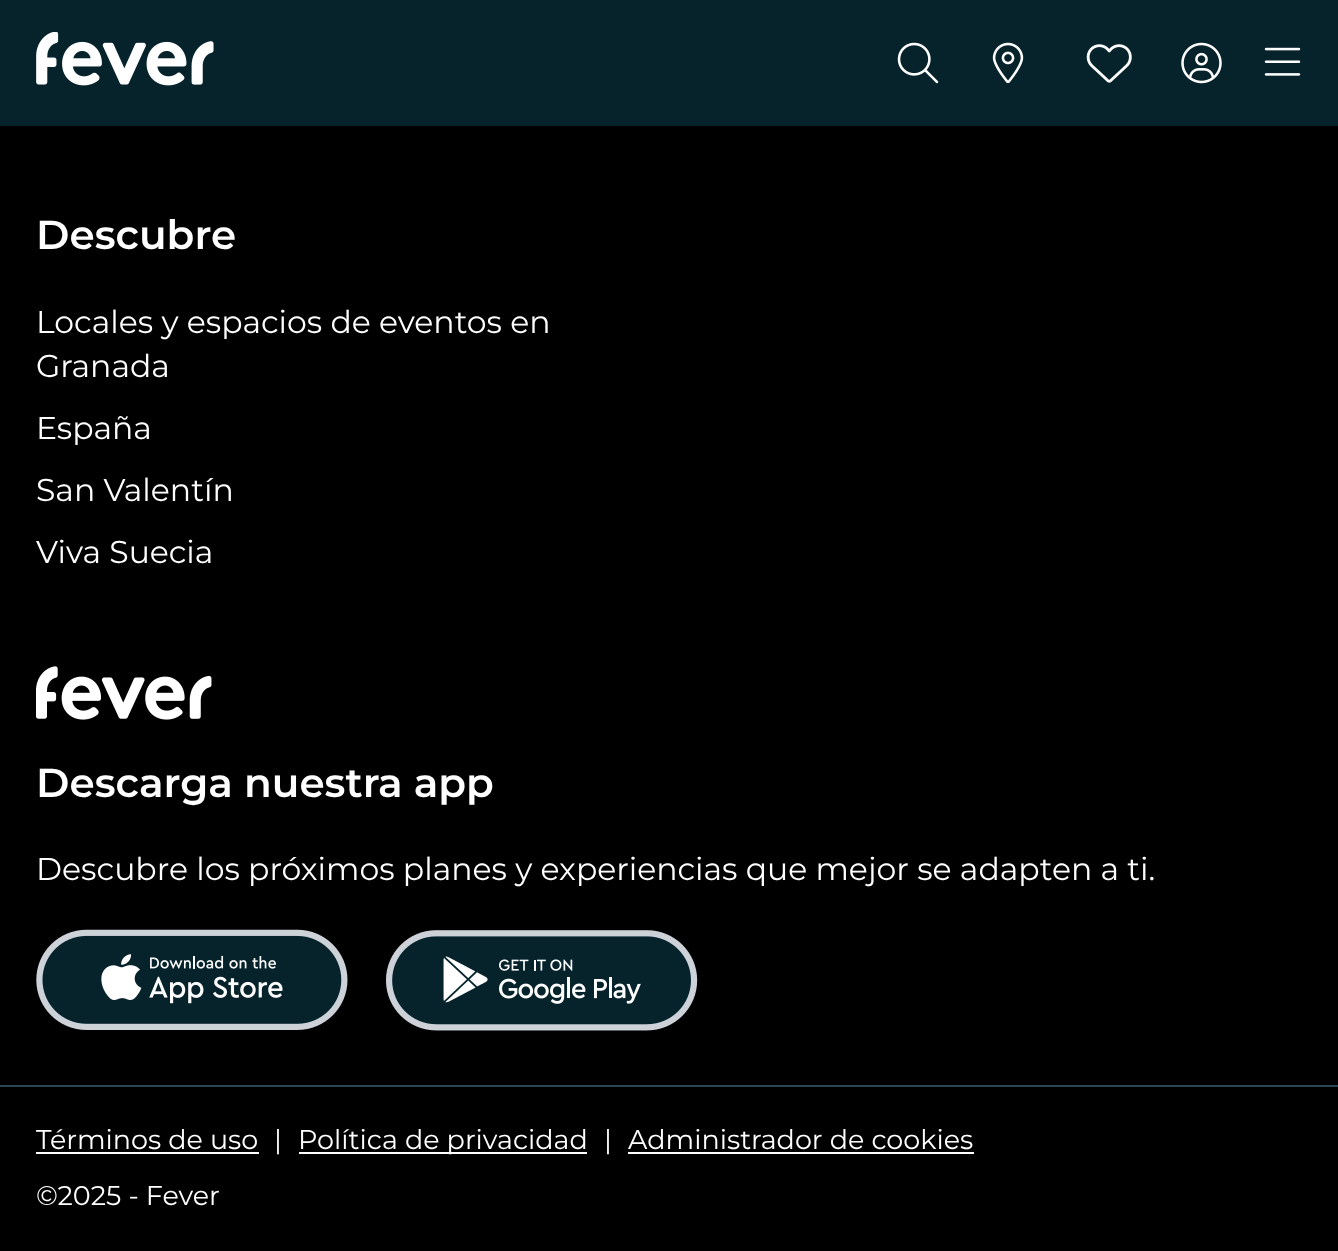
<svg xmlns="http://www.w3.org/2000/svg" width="1338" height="1251">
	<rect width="100%" height="100%" fill="#000000" />
	<rect x="0" y="0" width="1338" height="126" fill="#06232C" />
	<image x="36" y="32" width="178" height="54" href="assets/img1.png" />
	<image x="897" y="42" width="42" height="42" href="assets/img2.png" />
	<image x="992" y="42" width="32" height="42" href="assets/img3.png" />
	<image x="1086" y="44" width="46" height="39" href="assets/img4.png" />
	<image x="1181" y="42" width="41" height="42" href="assets/img5.png" />
	<image x="1264" y="47" width="37" height="29" href="assets/img6.png" />
	<text x="36" y="249" font-family="Montserrat" font-size="40.5" font-weight="600" fill="#FFFFFF">Descubre</text>
	<g font-family="Montserrat" font-size="31.5" fill="#FFFFFF">
		<text x="36" y="333">Locales y espacios de eventos en</text>
		<text x="36" y="377">Granada</text>
		<text x="36" y="439">España</text>
		<text x="36" y="501">San Valentín</text>
		<text x="36" y="563">Viva Suecia</text>
	</g>
	<image x="36" y="666" width="176" height="54" href="assets/img7.png" />
	<text x="36" y="797" font-family="Montserrat" font-size="40.5" font-weight="600" fill="#FFFFFF">Descarga nuestra app</text>
	<text x="36" y="880" font-family="Montserrat" font-size="31.5" fill="#FFFFFF">Descubre los próximos planes y experiencias que mejor se adapten a ti.</text>
	<image x="36" y="929" width="312" height="101" href="assets/img8.png" />
	<image x="385" y="930" width="313" height="101" href="assets/img9.png" />
	<rect x="0" y="1085" width="1338" height="2" fill="#2C4751" />
	<text x="36" y="1149" font-family="Montserrat" font-size="27" fill="#FFFFFF">Términos de uso</text>
	<rect x="36" y="1152" width="223" height="2" fill="#FFFFFF" />
	<text x="274" y="1149" font-family="Montserrat" font-size="27" fill="#FFFFFF">|</text>
	<rect x="299" y="1152" width="288" height="2" fill="#FFFFFF" />
	<g font-family="Montserrat" font-size="27" fill="#FFFFFF">
		<text x="298" y="1149">Política de privacidad</text>
		<text x="604" y="1149">|</text>
		<text x="628" y="1149">Administrador de cookies</text>
	</g>
	<rect x="628" y="1152" width="346" height="2" fill="#FFFFFF" />
	<text x="36" y="1205" font-family="Montserrat" font-size="27" fill="#FFFFFF">©2025 - Fever</text>
</svg>
